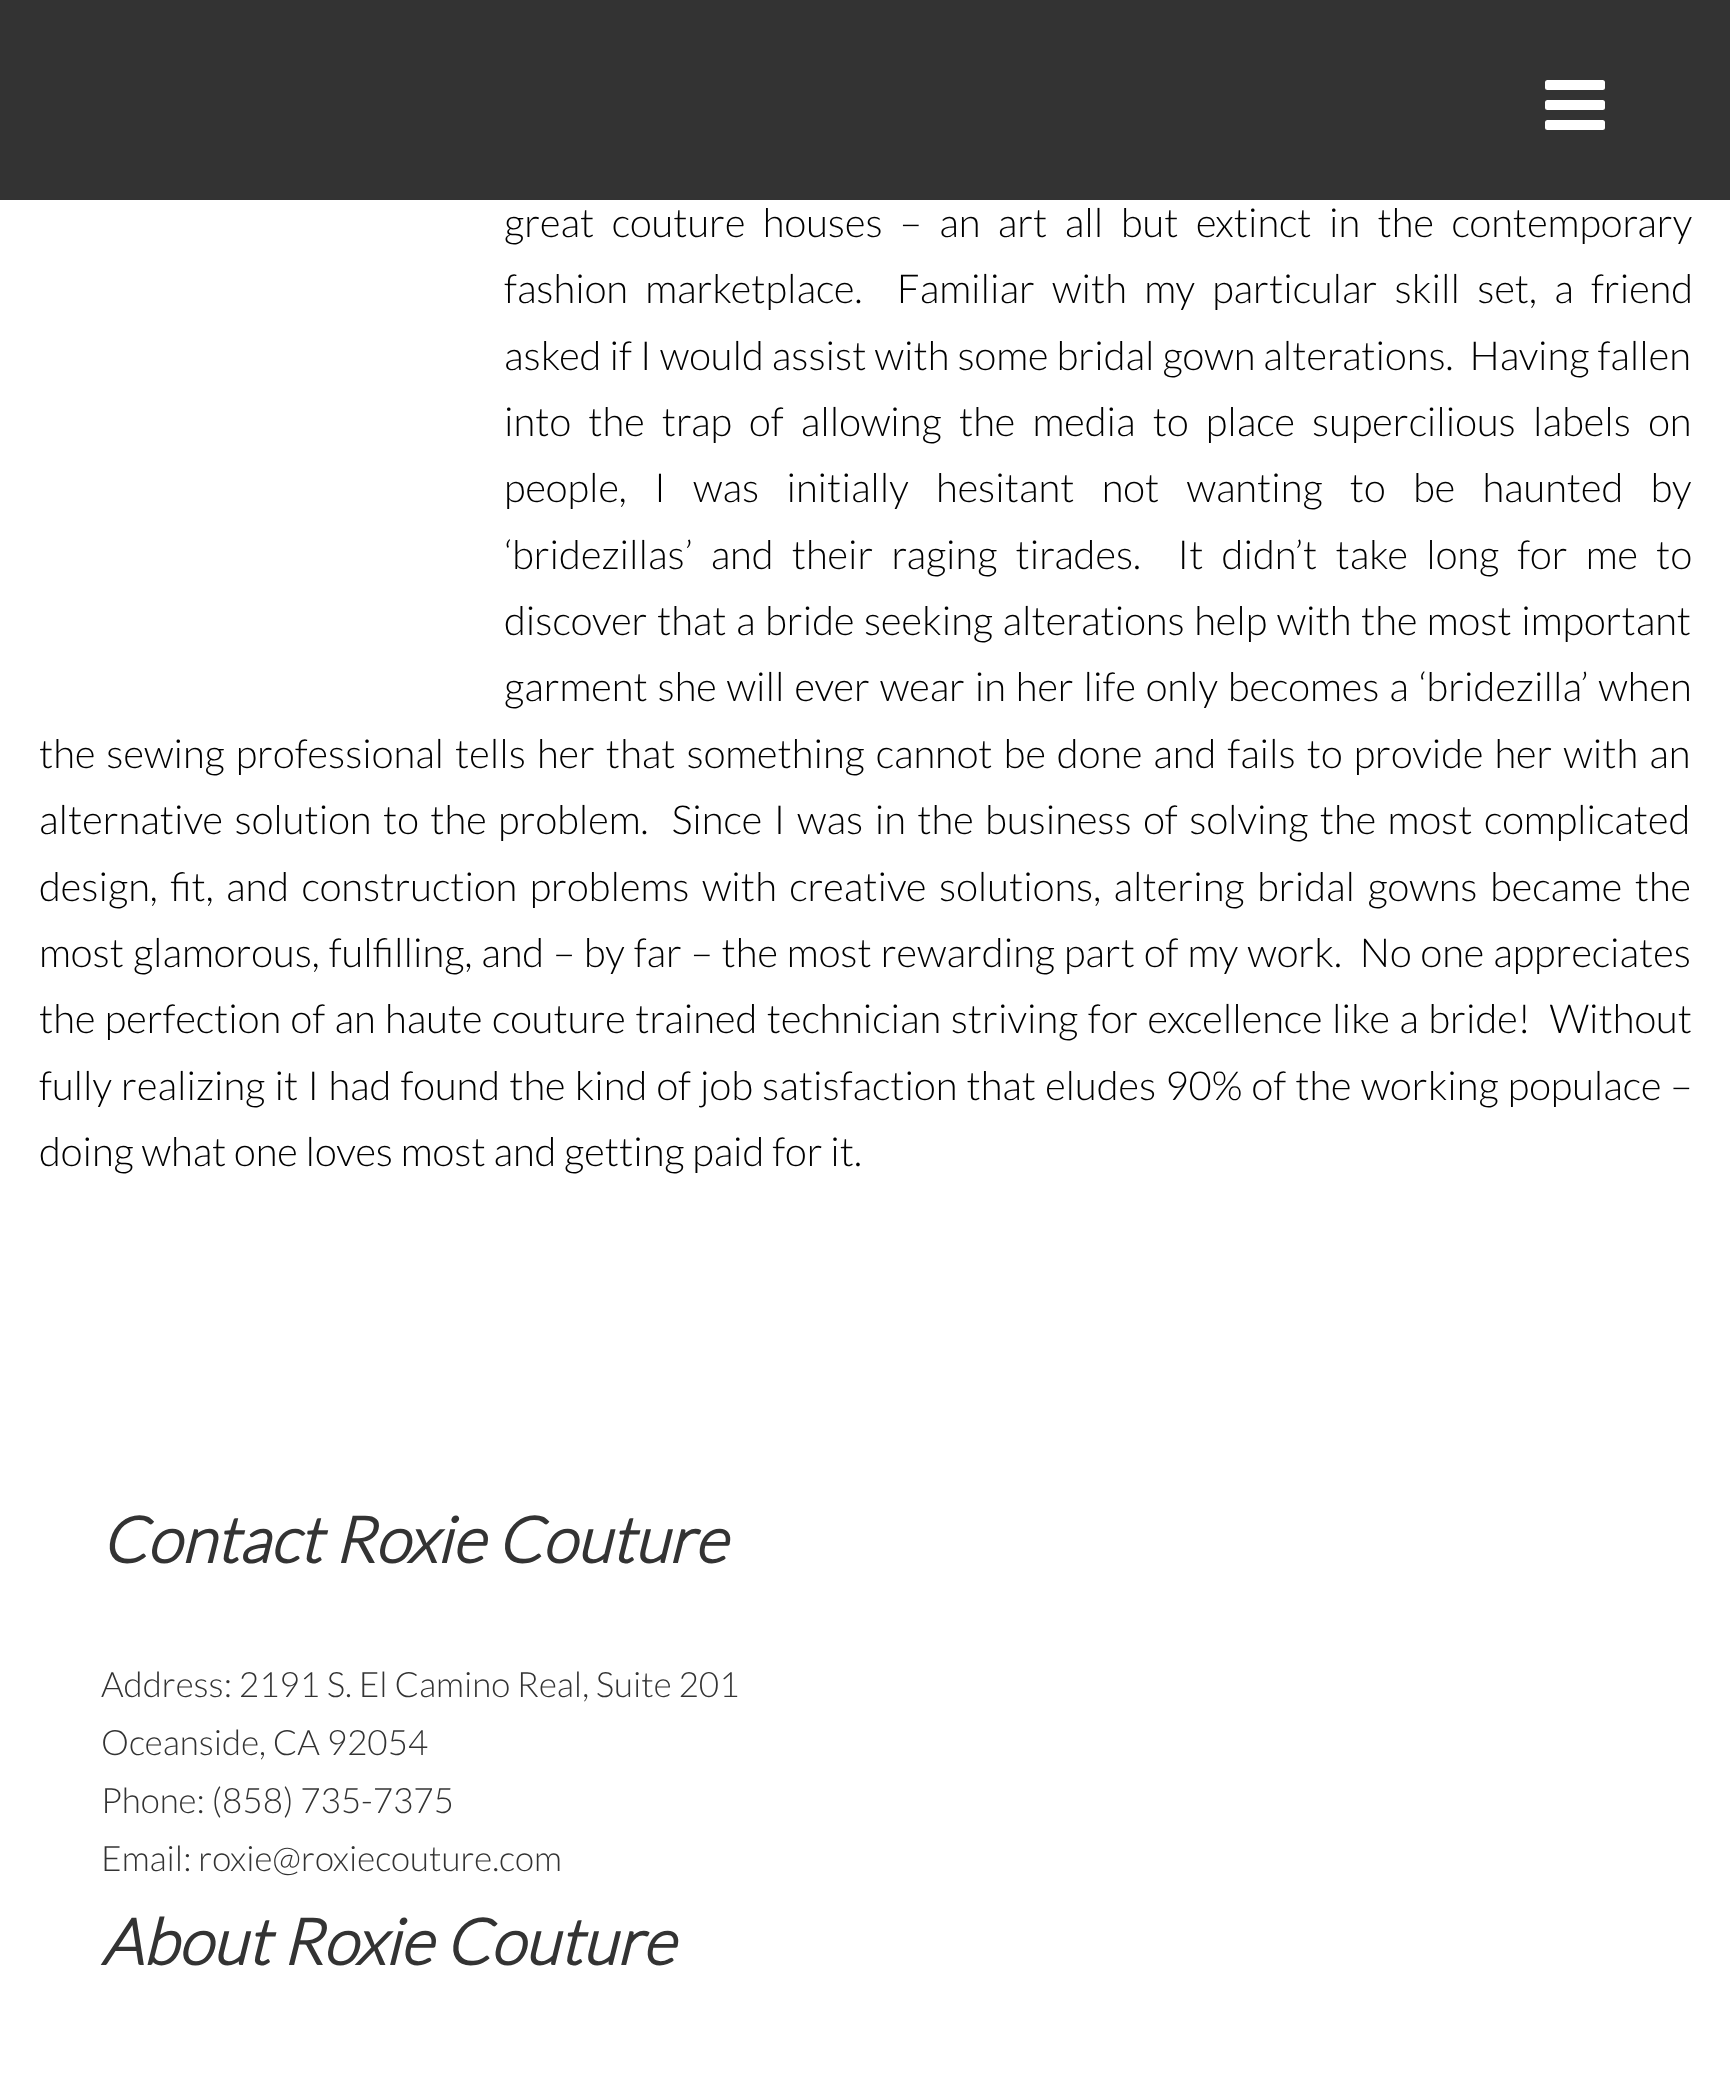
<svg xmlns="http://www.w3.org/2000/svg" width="1730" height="2083">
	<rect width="100%" height="100%" fill="#FFFFFF" />
	<rect x="0" y="0" width="1730" height="200" fill="#333333" />
	<rect x="1545" y="80" width="60" height="10" rx="2.5" fill="#FFFFFF" />
	<rect x="1545" y="100" width="60" height="10" rx="2.5" fill="#FFFFFF" />
	<rect x="1545" y="120" width="60" height="10" rx="2.5" fill="#FFFFFF" />
	<g font-family="Lato" font-size="40" font-weight="300" fill="#000000">
		<text x="504" y="237" word-spacing="9.75">great couture houses – an art all but extinct in the contemporary</text>
		<text x="504" y="303" word-spacing="9.5" xml:space="preserve">fashion marketplace.  Familiar with my particular skill set, a friend</text>
		<text x="504" y="370" word-spacing="0.25" xml:space="preserve">asked if I would assist with some bridal gown alterations.  Having fallen</text>
		<text x="504" y="436" word-spacing="9.5">into the trap of allowing the media to place supercilious labels on</text>
		<text x="504" y="502" word-spacing="19.5">people, I was initially hesitant not wanting to be haunted by</text>
		<text x="504" y="569" word-spacing="10.4" xml:space="preserve">‘bridezillas’ and their raging tirades.  It didn’t take long for me to</text>
		<text x="504" y="635" word-spacing="1.75">discover that a bride seeking alterations help with the most important</text>
		<text x="504" y="701" word-spacing="2.1">garment she will ever wear in her life only becomes a ‘bridezilla’ when</text>
		<text x="39" y="768" word-spacing="3.25">the sewing professional tells her that something cannot be done and fails to provide her with an</text>
		<text x="39" y="834" word-spacing="3.75" xml:space="preserve">alternative solution to the problem.  Since I was in the business of solving the most complicated</text>
		<text x="39" y="901" word-spacing="4.75">design, fit, and construction problems with creative solutions, altering bridal gowns became the</text>
		<text x="39" y="967" word-spacing="1.25" xml:space="preserve">most glamorous, fulfilling, and – by far – the most rewarding part of my work.  No one appreciates</text>
		<text x="39" y="1033" word-spacing="1.75" xml:space="preserve">the perfection of an haute couture trained technician striving for excellence like a bride!  Without</text>
		<text x="39" y="1100" word-spacing="1.4">fully realizing it I had found the kind of job satisfaction that eludes 90% of the working populace –</text>
		<text x="39" y="1166">doing what one loves most and getting paid for it.</text>
	</g>
	<text x="101" y="1563" font-family="Lato" font-size="64" font-weight="700" font-style="italic" fill="#333333">Contact Roxie Couture</text>
	<g font-family="Lato" font-size="35" font-weight="300" fill="#333333">
		<text x="101" y="1697">Address: 2191 S. El Camino Real, Suite 201</text>
		<text x="101" y="1755">Oceanside, CA 92054</text>
		<text x="101" y="1813">Phone: (858) 735-7375</text>
		<text x="101" y="1871">Email: roxie@roxiecouture.com</text>
	</g>
	<text x="101" y="1965" font-family="Lato" font-size="64" font-weight="700" font-style="italic" fill="#333333">About Roxie Couture</text>
</svg>
